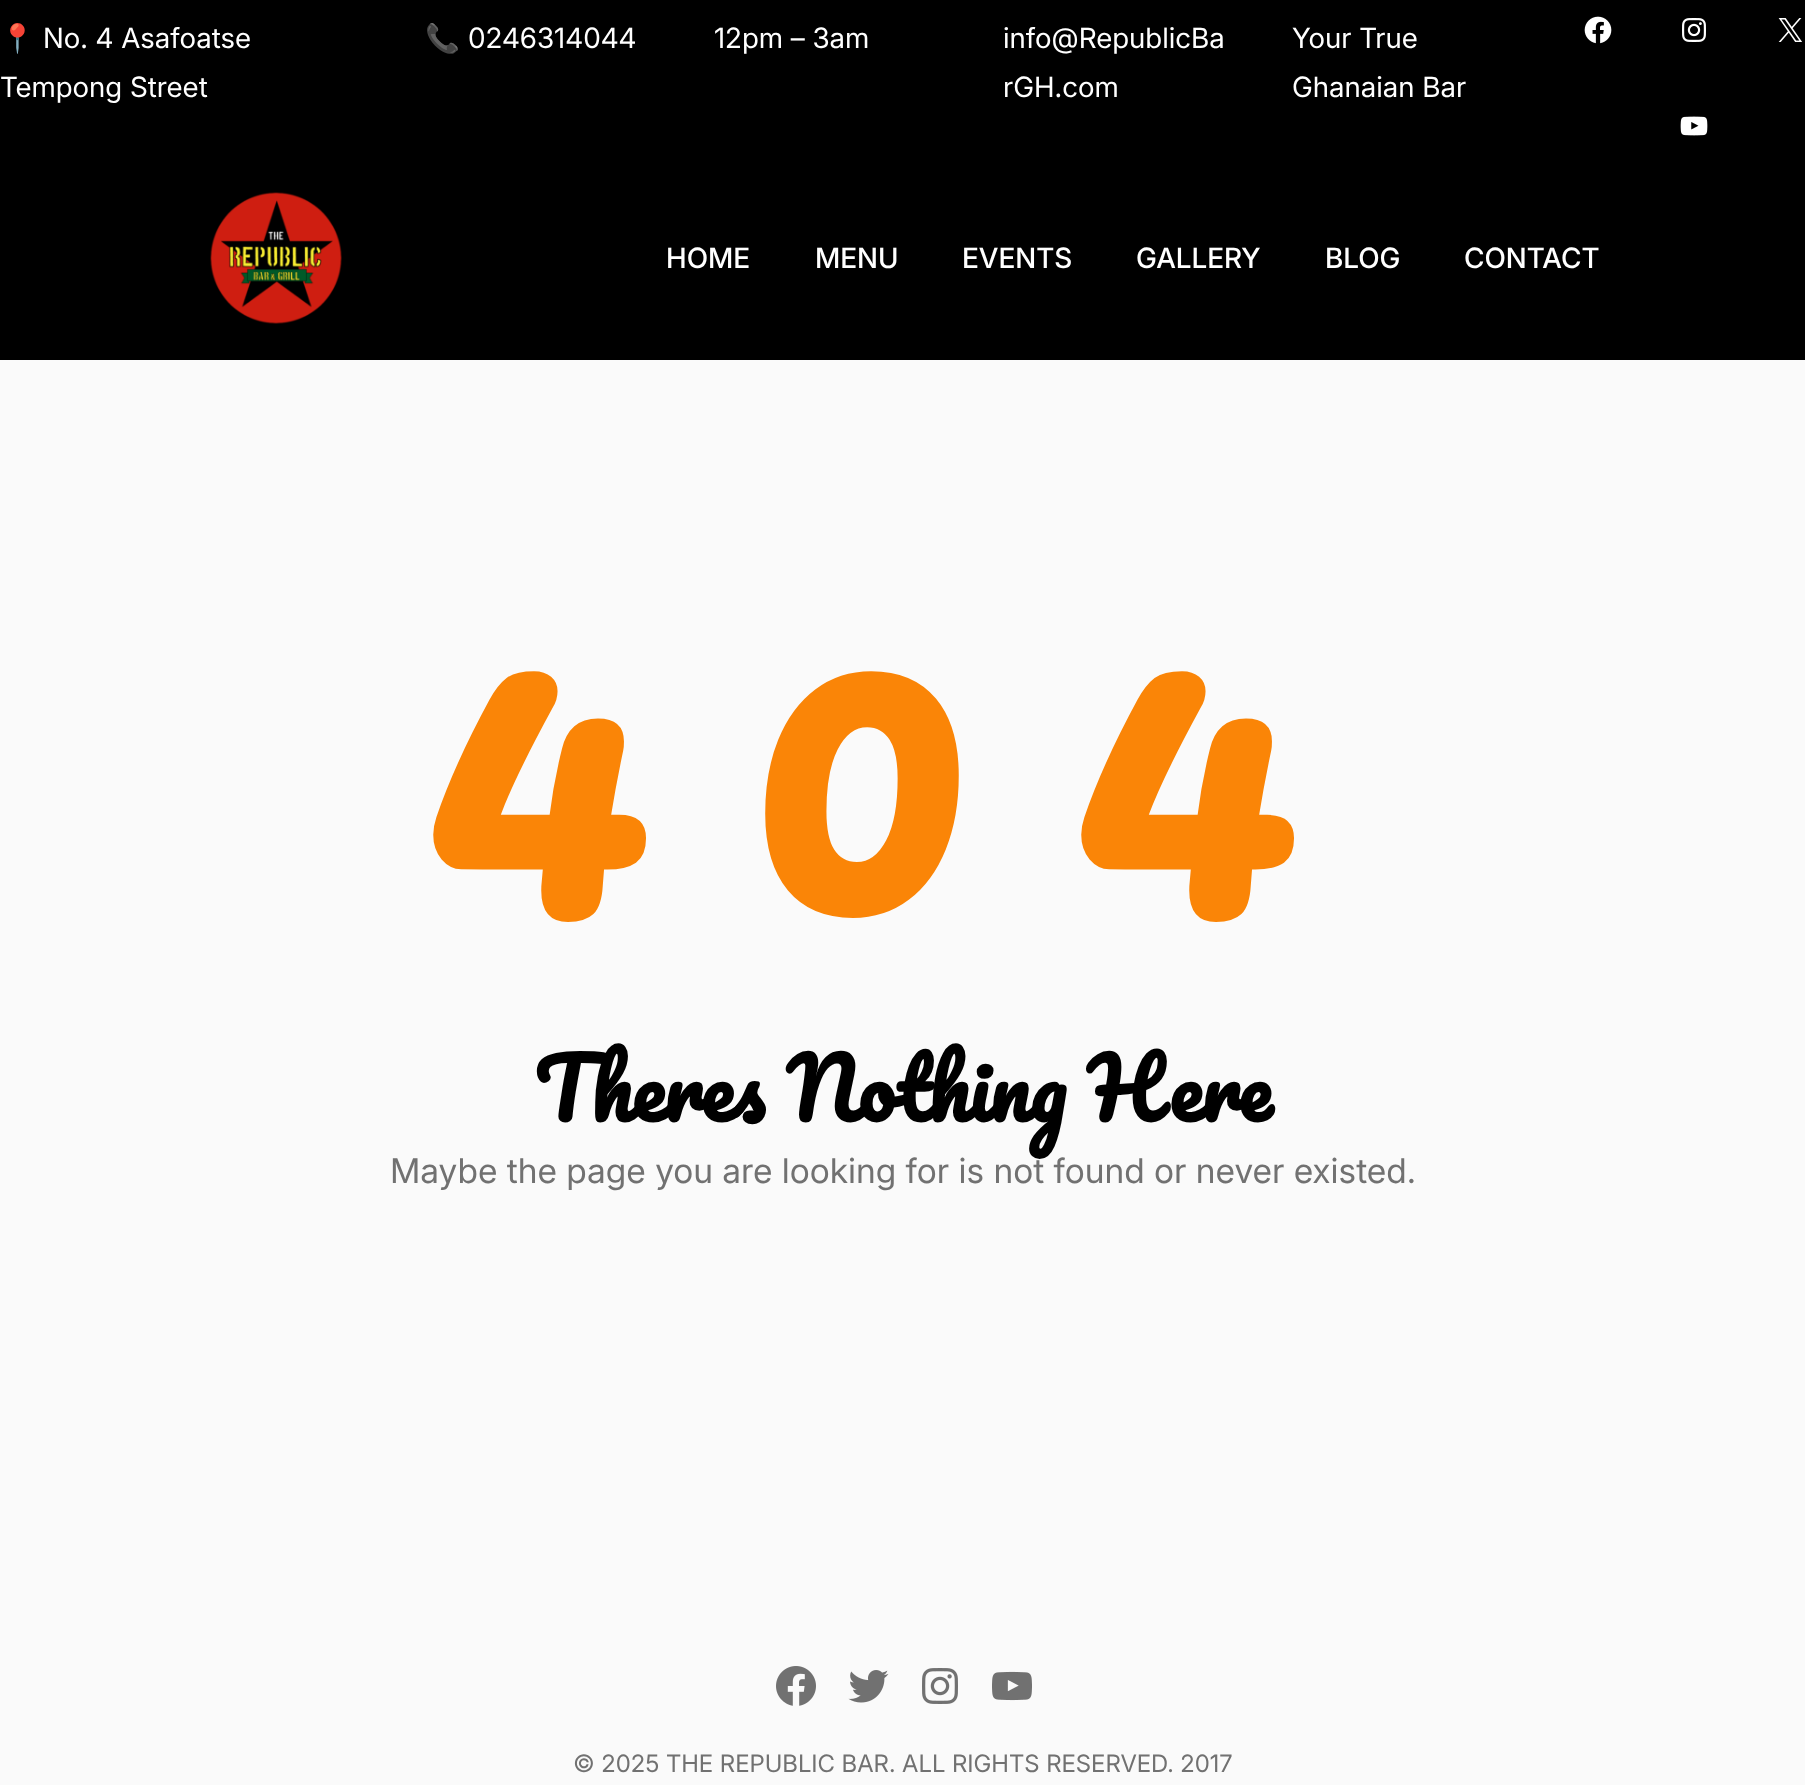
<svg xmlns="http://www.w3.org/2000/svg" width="1805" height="1785">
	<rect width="100%" height="100%" fill="#FAFAFA" />
	<rect x="0" y="0" width="1805" height="360" fill="#000000" />
	<text x="0" y="48" font-family="Noto Color Emoji" font-size="28" fill="#FFFFFF">📍</text>
	<g font-family="Inter" font-size="28" fill="#FFFFFF">
		<text x="43" y="48">No. 4 Asafoatse</text>
		<text x="0" y="97">Tempong Street</text>
	</g>
	<text x="425" y="48" font-family="Noto Color Emoji" font-size="28" fill="#FFFFFF">📞</text>
	<g font-family="Inter" font-size="28" fill="#FFFFFF">
		<text x="468" y="48">0246314044</text>
		<text x="714" y="48">12pm – 3am</text>
		<text x="1003" y="48">info@RepublicBa</text>
		<text x="1003" y="97">rGH.com</text>
		<text x="1292" y="48">Your True</text>
		<text x="1292" y="97">Ghanaian Bar</text>
	</g>
	<image x="1584" y="16" width="28" height="28" href="assets/img1.png" />
	<image x="1682" y="18" width="24" height="24" href="assets/img2.png" />
	<image x="1778" y="18" width="24" height="24" href="assets/img3.png" />
	<image x="1680" y="116" width="28" height="20" href="assets/img4.png" />
	<image x="210" y="192" width="132" height="132" href="assets/img5.png" />
	<g font-family="Inter" font-size="28" font-weight="500" fill="#FFFFFF">
		<text x="666" y="268">HOME</text>
		<text x="815" y="268">MENU</text>
		<text x="962" y="268">EVENTS</text>
		<text x="1136" y="268">GALLERY</text>
		<text x="1325" y="268">BLOG</text>
		<text x="1464" y="268">CONTACT</text>
	</g>
	<text x="414" y="916" font-family="Pacifico" font-size="400" font-weight="700" letter-spacing="100" fill="#FA8507">404</text>
	<text x="534" y="1122" font-family="Pacifico" font-size="81.25" font-weight="700" fill="#000000">Theres Nothing Here</text>
	<text x="390" y="1183" font-family="Inter" font-size="34" fill="#717171">Maybe the page you are looking for is not found or never existed.</text>
	<image x="776" y="1666" width="40" height="40" href="assets/img6.png" />
	<image x="848" y="1670" width="41" height="33" href="assets/img7.png" />
	<image x="922" y="1668" width="36" height="36" href="assets/img8.png" />
	<image x="992" y="1671" width="40" height="30" href="assets/img9.png" />
	<text x="573" y="1772" font-family="Inter" font-size="24" fill="#717171">© 2025 THE REPUBLIC BAR. ALL RIGHTS RESERVED. 2017</text>
</svg>
